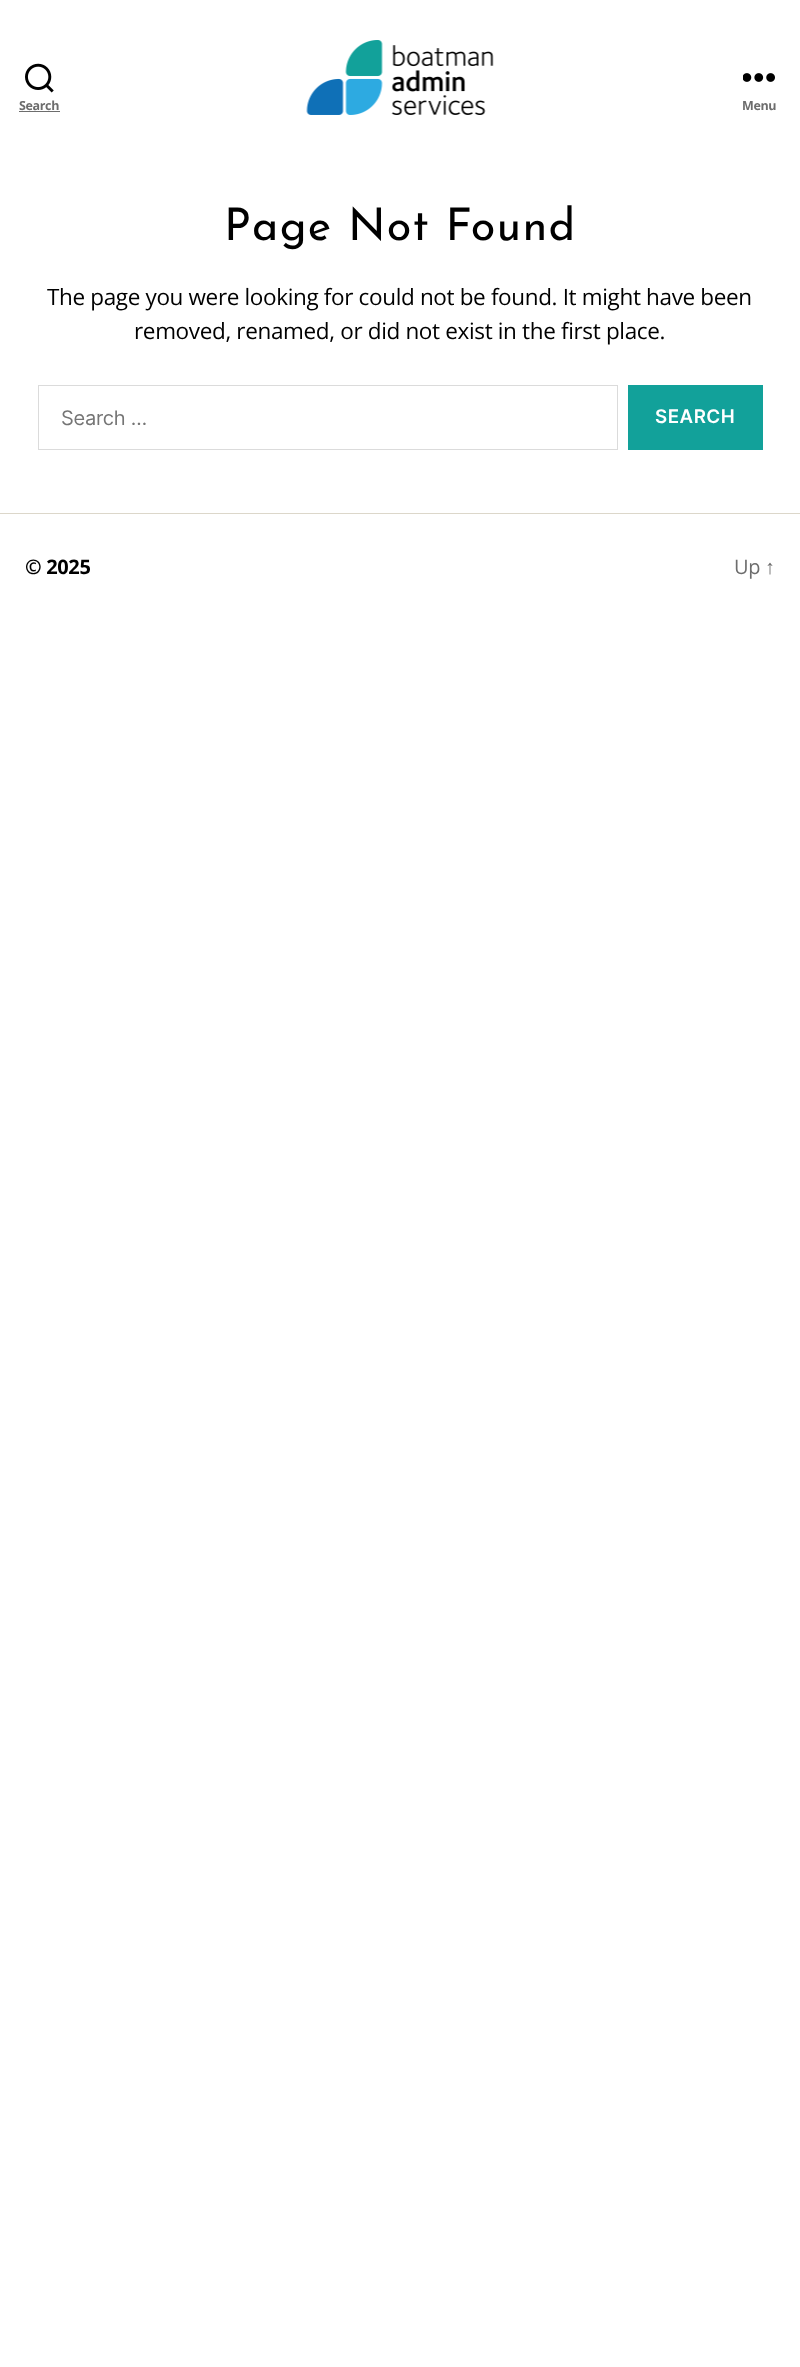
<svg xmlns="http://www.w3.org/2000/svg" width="800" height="2367">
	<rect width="100%" height="100%" fill="#FFFFFF" />
	<image x="25" y="63" width="29" height="30" href="assets/img1.png" />
	<text x="19" y="110" font-family="Open Sans" font-size="12.5" font-weight="700" letter-spacing="-0.35" fill="#6D6D6D">Search</text>
	<rect x="19" y="111" width="41" height="1" fill="#6D6D6D" />
	<image x="306" y="40" width="188" height="75" href="assets/img2.png" />
	<image x="743" y="73" width="32" height="9" href="assets/img3.png" />
	<text x="742" y="110" font-family="Open Sans" font-size="12.5" font-weight="700" letter-spacing="-0.35" fill="#6D6D6D">Menu</text>
	<text x="224" y="240" font-family="Josefin Sans" font-size="45" letter-spacing="1.25" fill="#000000">Page Not Found</text>
	<g font-family="Open Sans" font-size="22.5" letter-spacing="-0.35" fill="#000000">
		<text x="47" y="305">The page you were looking for could not be found. It might have been</text>
		<text x="134" y="339">removed, renamed, or did not exist in the first place.</text>
	</g>
	<rect x="38.5" y="385.5" width="579" height="64" fill="none" stroke="#DBDBDB" />
	<text x="61" y="425" font-family="Inter" font-size="20" letter-spacing="-0.25" fill="#757575">Search …</text>
	<rect x="628" y="385" width="135" height="65" fill="#12A19A" />
	<text x="655" y="423" font-family="Inter" font-size="18.75" font-weight="600" letter-spacing="0.5" fill="#FFFFFF">SEARCH</text>
	<rect x="0" y="513" width="800" height="1" fill="#DCD7CA" />
	<text x="25" y="574" font-family="Open Sans" font-size="20" font-weight="700" letter-spacing="-0.35" fill="#000000">© 2025</text>
	<text x="734" y="574" font-family="Open Sans" font-size="20" letter-spacing="-0.35" fill="#6D6D6D">Up</text>
	<text x="765" y="574" font-family="Liberation Sans" font-size="20" letter-spacing="-0.35" fill="#6D6D6D">↑</text>
</svg>
